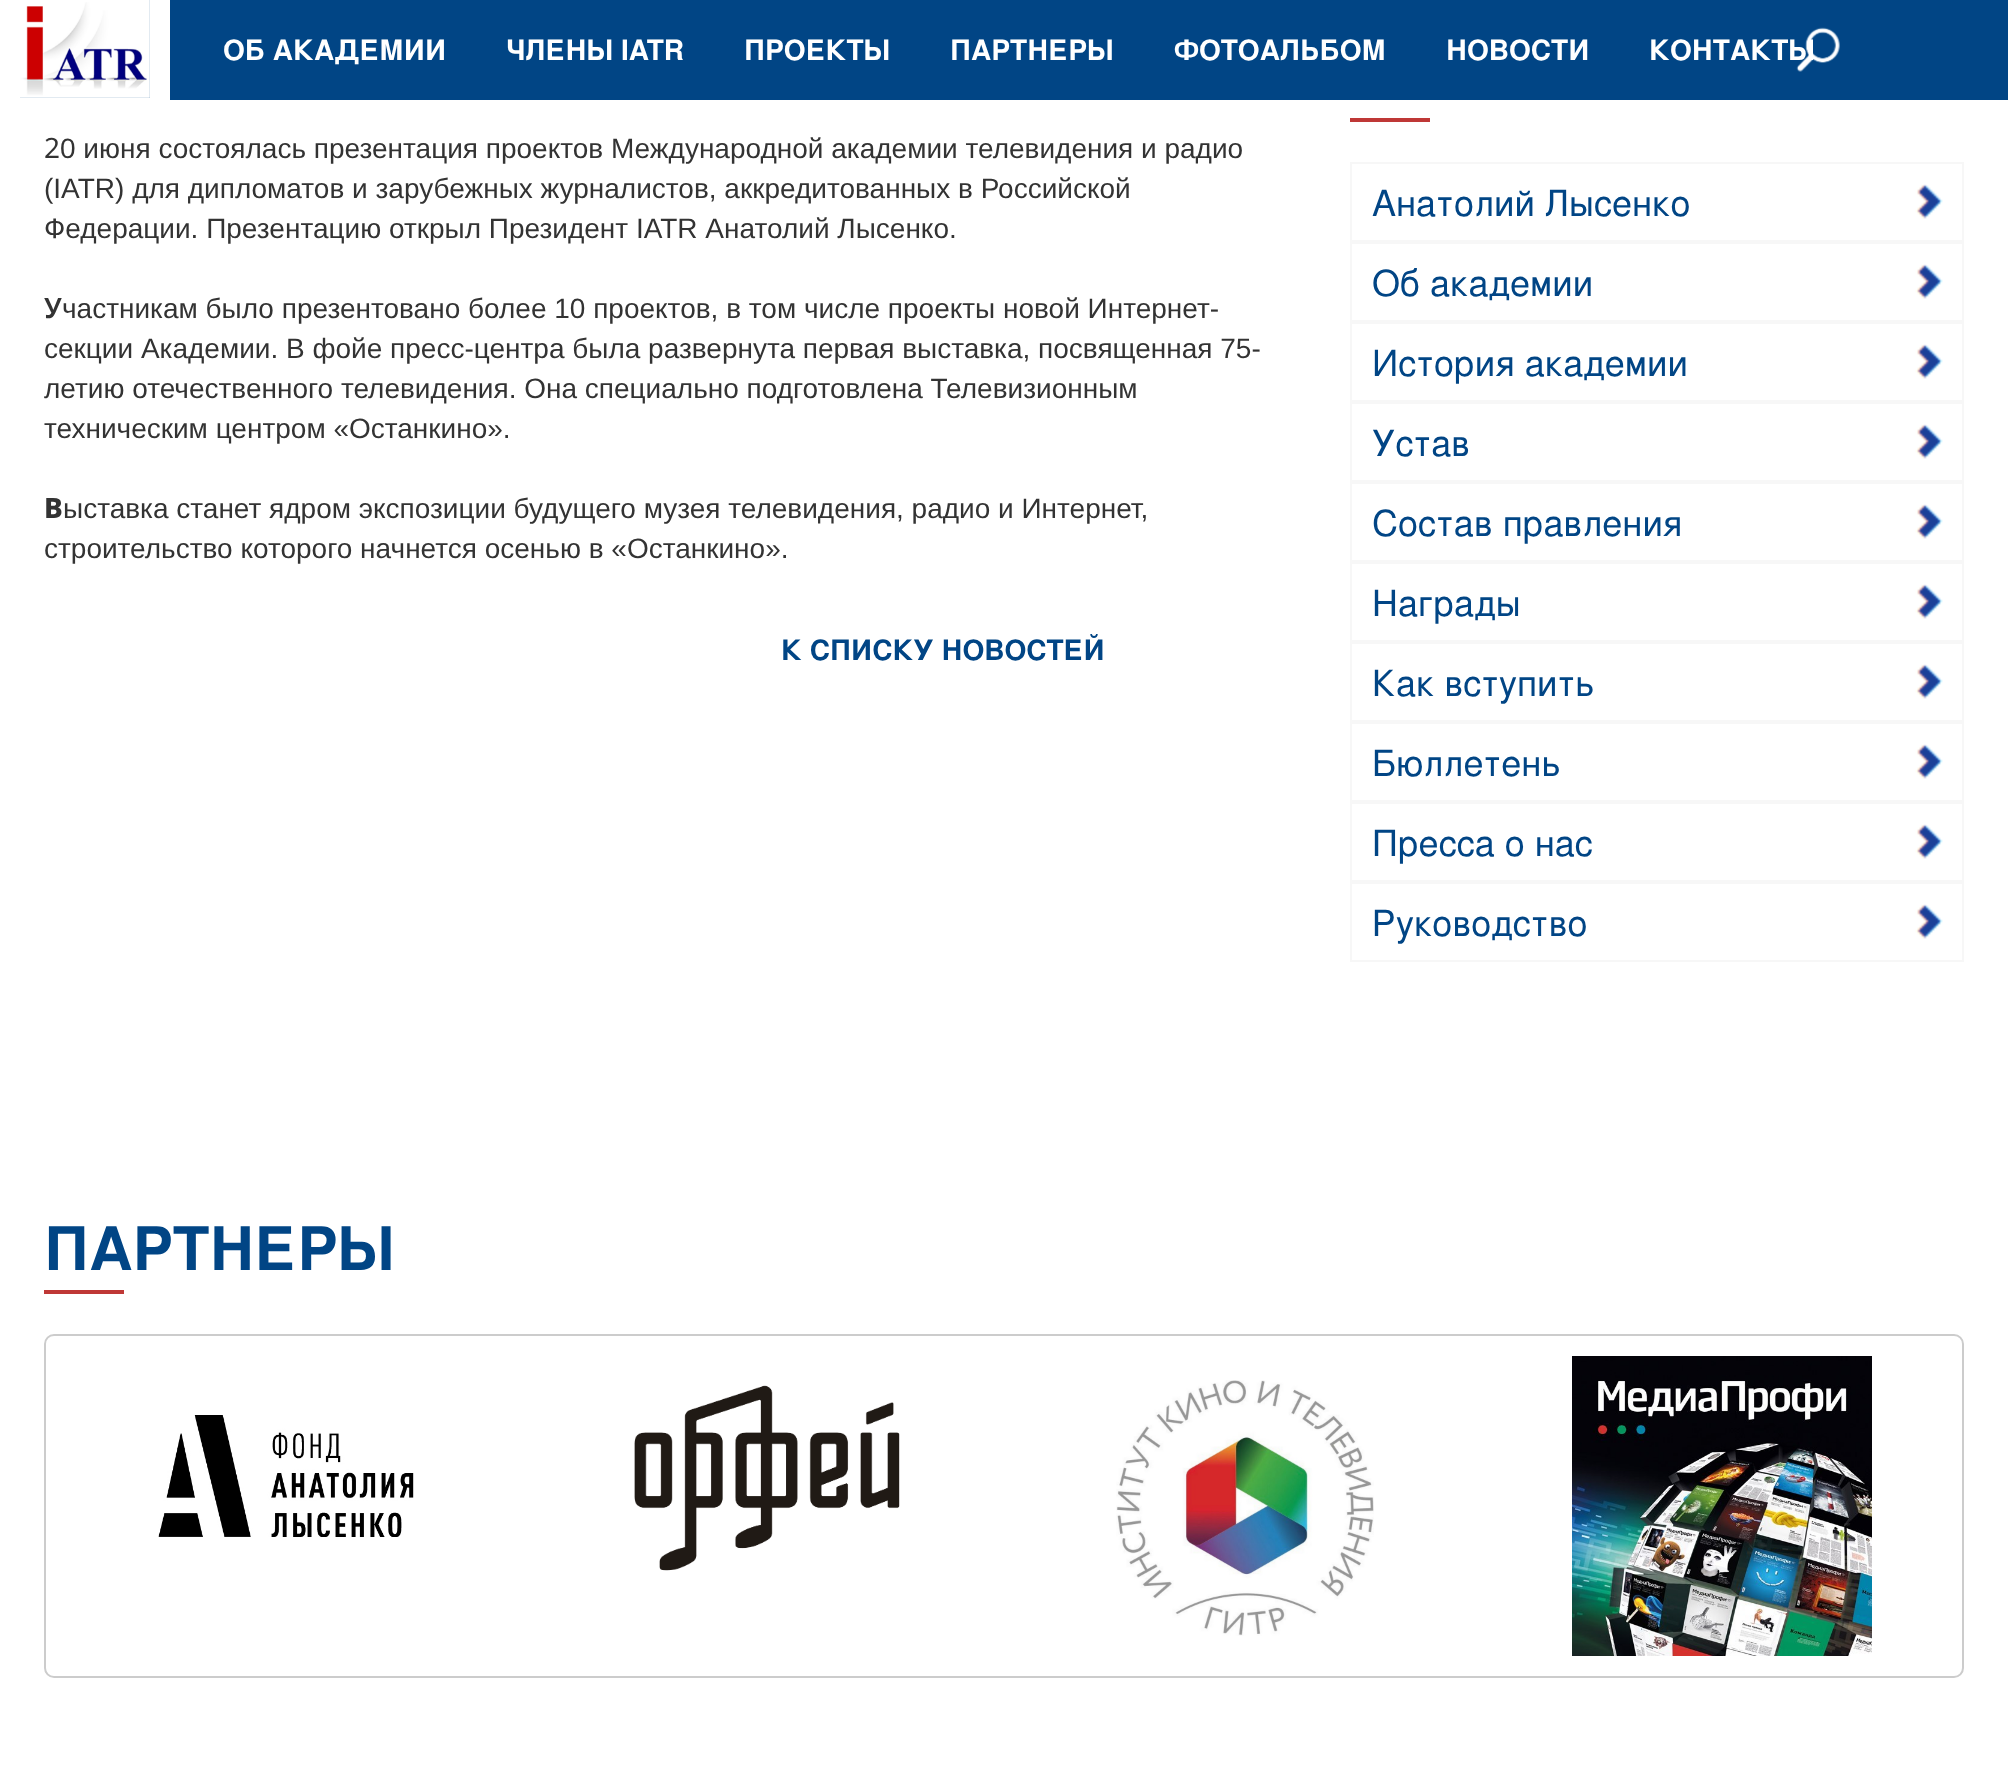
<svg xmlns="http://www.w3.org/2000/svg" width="2008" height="1779">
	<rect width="100%" height="100%" fill="#FFFFFF" />
	<rect x="20" y="0" width="1988" height="100" fill="#014585" />
	<rect x="150" y="0" width="20" height="98" fill="#FFFFFF" />
	<rect x="20" y="98" width="150" height="2" fill="#FFFFFF" />
	<image x="20" y="0" width="130" height="98" href="assets/img1.png" />
	<image x="1796" y="27" width="44" height="45" href="assets/img2.png" />
	<g font-family="TeX Gyre Heros" font-size="28" font-weight="700" fill="#FFFFFF">
		<text x="223" y="60">ОБ АКАДЕМИИ</text>
		<text x="506" y="60">ЧЛЕНЫ IATR</text>
		<text x="744" y="60">ПРОЕКТЫ</text>
		<text x="950" y="60">ПАРТНЕРЫ</text>
		<text x="1174" y="60">ФОТОАЛЬБОМ</text>
		<text x="1446" y="60">НОВОСТИ</text>
		<text x="1649" y="60">КОНТАКТЫ</text>
	</g>
	<text x="44" y="158" font-family="Noto Sans" font-size="28" fill="#333333">2</text>
	<g font-family="Liberation Sans" font-size="28" fill="#333333">
		<text x="60" y="158">0 июня состоялась презентация проектов Международной академии телевидения и радио</text>
		<text x="44" y="198">(IATR) для дипломатов и зарубежных журналистов, аккредитованных в Российской</text>
		<text x="44" y="238">Федерации. Презентацию открыл Президент IATR Анатолий Лысенко.</text>
	</g>
	<text x="44" y="318" font-family="Noto Sans" font-size="28" font-weight="600" fill="#333333">У</text>
	<g font-family="Liberation Sans" font-size="28" fill="#333333">
		<text x="62" y="318">частникам было презентовано более 10 проектов, в том числе проекты новой Интернет-</text>
		<text x="44" y="358">секции Академии. В фойе пресс-центра была развернута первая выставка, посвященная 75-</text>
		<text x="44" y="398">летию отечественного телевидения. Она специально подготовлена Телевизионным</text>
		<text x="44" y="438">техническим центром «Останкино».</text>
	</g>
	<text x="44" y="518" font-family="Noto Sans" font-size="28" font-weight="800" fill="#333333">В</text>
	<g font-family="Liberation Sans" font-size="28" fill="#333333">
		<text x="63" y="518">ыставка станет ядром экспозиции будущего музея телевидения, радио и Интернет,</text>
		<text x="44" y="558">строительство которого начнется осенью в «Останкино».</text>
	</g>
	<text x="781" y="660" font-family="TeX Gyre Heros" font-size="28" font-weight="700" fill="#014585">К СПИСКУ НОВОСТЕЙ</text>
	<rect x="1350" y="118" width="80" height="4" fill="#BF3836" />
	<image x="1915" y="184" width="28" height="35" href="assets/img3.png" />
	<rect x="1351" y="163" width="612" height="78" fill="none" stroke="#F7F7F7" stroke-width="2" />
	<text x="1372" y="216" font-family="TeX Gyre Heros" font-size="36" fill="#014585">Анатолий Лысенко</text>
	<image x="1915" y="264" width="28" height="35" href="assets/img3.png" />
	<rect x="1351" y="243" width="612" height="78" fill="none" stroke="#F7F7F7" stroke-width="2" />
	<text x="1372" y="296" font-family="TeX Gyre Heros" font-size="36" fill="#014585">Об академии</text>
	<image x="1915" y="344" width="28" height="35" href="assets/img3.png" />
	<rect x="1351" y="323" width="612" height="78" fill="none" stroke="#F7F7F7" stroke-width="2" />
	<text x="1372" y="376" font-family="TeX Gyre Heros" font-size="36" fill="#014585">История академии</text>
	<image x="1915" y="424" width="28" height="35" href="assets/img3.png" />
	<rect x="1351" y="403" width="612" height="78" fill="none" stroke="#F7F7F7" stroke-width="2" />
	<text x="1372" y="456" font-family="TeX Gyre Heros" font-size="36" fill="#014585">Устав</text>
	<image x="1915" y="504" width="28" height="35" href="assets/img3.png" />
	<rect x="1351" y="483" width="612" height="78" fill="none" stroke="#F7F7F7" stroke-width="2" />
	<text x="1372" y="536" font-family="TeX Gyre Heros" font-size="36" fill="#014585">Состав правления</text>
	<image x="1915" y="584" width="28" height="35" href="assets/img3.png" />
	<rect x="1351" y="563" width="612" height="78" fill="none" stroke="#F7F7F7" stroke-width="2" />
	<text x="1372" y="616" font-family="TeX Gyre Heros" font-size="36" fill="#014585">Награды</text>
	<image x="1915" y="664" width="28" height="35" href="assets/img3.png" />
	<rect x="1351" y="643" width="612" height="78" fill="none" stroke="#F7F7F7" stroke-width="2" />
	<text x="1372" y="696" font-family="TeX Gyre Heros" font-size="36" fill="#014585">Как вступить</text>
	<image x="1915" y="744" width="28" height="35" href="assets/img3.png" />
	<rect x="1351" y="723" width="612" height="78" fill="none" stroke="#F7F7F7" stroke-width="2" />
	<text x="1372" y="776" font-family="TeX Gyre Heros" font-size="36" fill="#014585">Бюллетень</text>
	<image x="1915" y="824" width="28" height="35" href="assets/img3.png" />
	<rect x="1351" y="803" width="612" height="78" fill="none" stroke="#F7F7F7" stroke-width="2" />
	<text x="1372" y="856" font-family="TeX Gyre Heros" font-size="36" fill="#014585">Пресса о нас</text>
	<image x="1915" y="904" width="28" height="35" href="assets/img3.png" />
	<rect x="1351" y="883" width="612" height="78" fill="none" stroke="#F7F7F7" stroke-width="2" />
	<text x="1372" y="936" font-family="TeX Gyre Heros" font-size="36" fill="#014585">Руководство</text>
	<text x="44" y="1270" font-family="TeX Gyre Heros" font-size="60" font-weight="700" fill="#014585">ПАРТНЕРЫ</text>
	<rect x="44" y="1290" width="80" height="4" fill="#BF3836" />
	<rect x="45" y="1335" width="1918" height="342" rx="9" fill="none" stroke="#CCCCCC" stroke-width="2" />
	<image x="158" y="1415" width="256" height="122" href="assets/img4.png" />
	<image x="634" y="1385" width="266" height="186" href="assets/img5.png" />
	<image x="1116" y="1380" width="258" height="256" href="assets/img6.png" />
	<image x="1572" y="1356" width="300" height="300" href="assets/img7.png" />
</svg>
